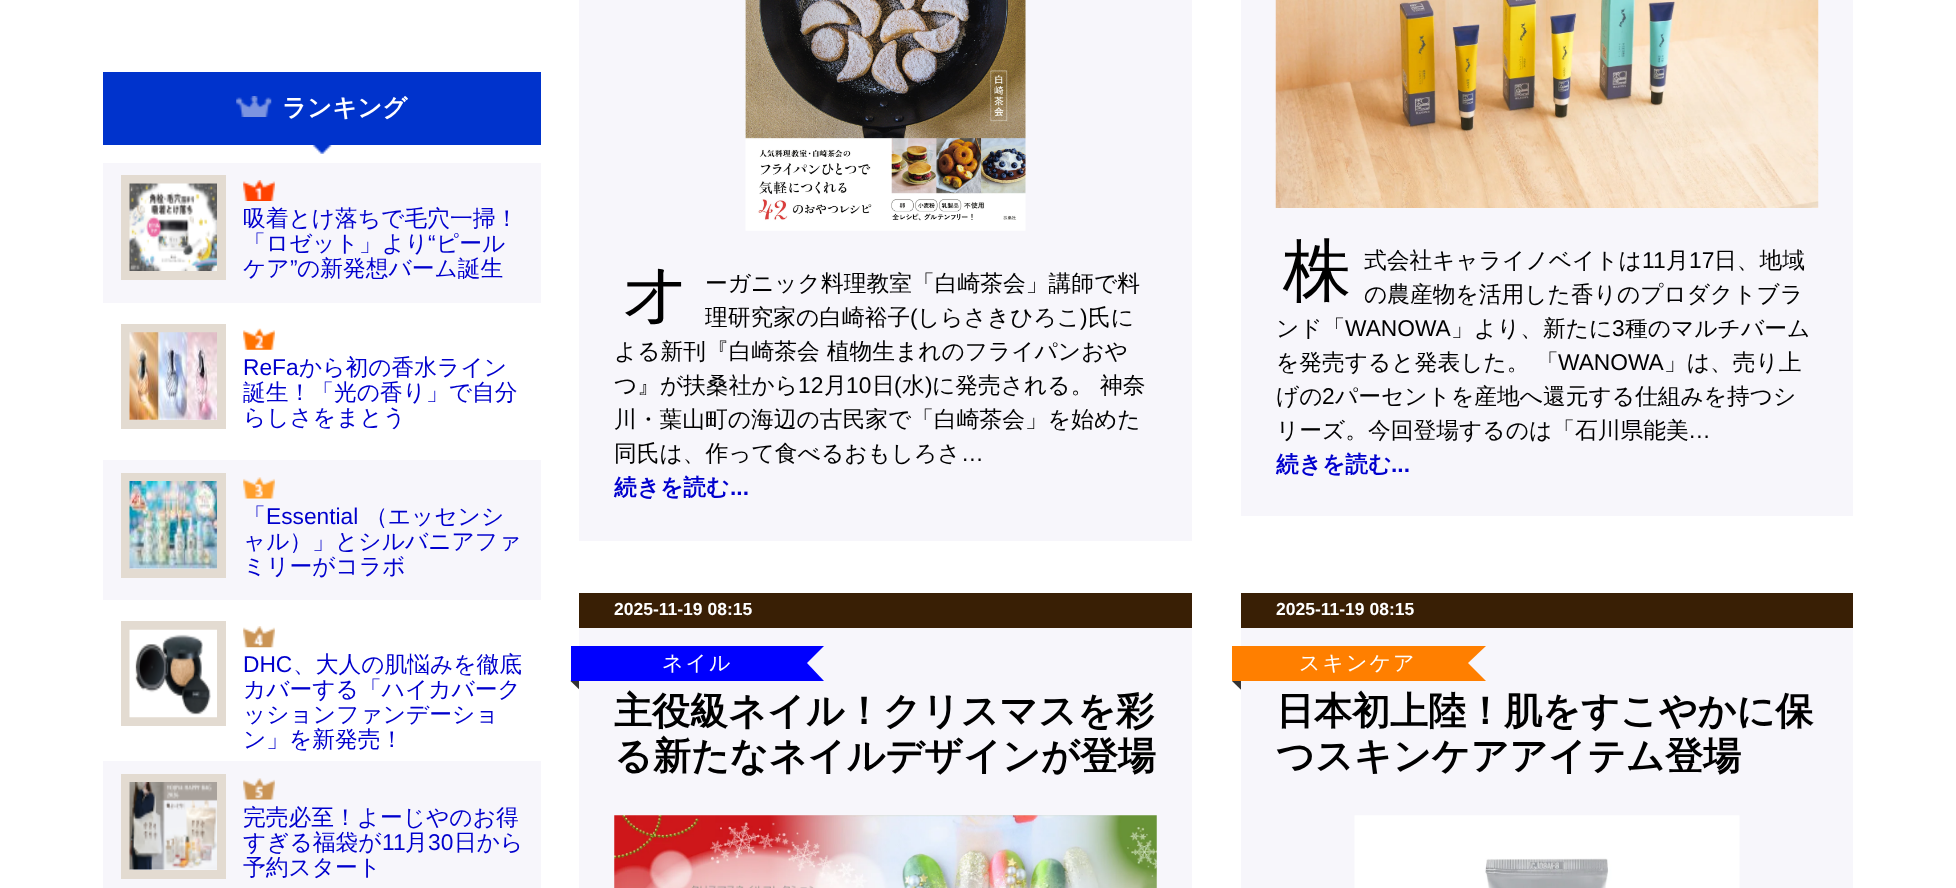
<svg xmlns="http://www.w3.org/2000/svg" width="1956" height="888">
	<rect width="100%" height="100%" fill="#FFFFFF" />
	<rect x="103" y="72" width="438" height="73" fill="#0033CC" />
	<image x="236" y="96" width="36" height="21" href="assets/img1.png" />
	<text x="282" y="116" font-family="WenQuanYi Zen Hei" font-size="24.5" font-weight="700" fill="#FFFFFF">ランキング</text>
	<image x="312" y="145" width="20" height="9" href="assets/img2.png" />
	<rect x="103" y="163" width="438" height="140" fill="#F7F6FB" />
	<image x="243" y="180" width="32" height="21" href="assets/img3.png" />
	<rect x="125.5" y="179.5" width="96" height="96" fill="none" stroke="#E3DBD1" stroke-width="9" />
	<image x="129" y="183" width="88" height="88" href="assets/img4.png" />
	<g font-family="WenQuanYi Zen Hei" font-size="22.75" font-weight="500" fill="#0000CD">
		<text x="243" y="226">吸着とけ落ちで毛穴一掃！</text>
		<text x="243" y="251">「ロゼット」より</text>
	</g>
	<text x="428" y="251" font-family="Liberation Sans" font-size="22.75" fill="#0000CD">“</text>
	<g font-family="WenQuanYi Zen Hei" font-size="22.75" font-weight="500" fill="#0000CD">
		<text x="436" y="251">ピール</text>
		<text x="243" y="276">ケア</text>
	</g>
	<text x="290" y="276" font-family="Liberation Sans" font-size="22.75" fill="#0000CD">”</text>
	<text x="297" y="276" font-family="WenQuanYi Zen Hei" font-size="22.75" font-weight="500" fill="#0000CD">の新発想バーム誕生</text>
	<image x="243" y="328" width="32" height="22" href="assets/img5.png" />
	<rect x="125.5" y="328.5" width="96" height="96" fill="none" stroke="#E3DBD1" stroke-width="9" />
	<image x="129" y="332" width="88" height="88" href="assets/img6.png" />
	<text x="243" y="375" font-family="Liberation Sans" font-size="22.75" fill="#0000CD">ReFa</text>
	<g font-family="WenQuanYi Zen Hei" font-size="22.75" font-weight="500" fill="#0000CD">
		<text x="299" y="375">から初の香水ライン</text>
		<text x="243" y="400">誕生！「光の香り」で自分</text>
		<text x="243" y="425">らしさをまとう</text>
	</g>
	<rect x="103" y="460" width="438" height="140" fill="#F7F6FB" />
	<image x="243" y="477" width="32" height="22" href="assets/img7.png" />
	<rect x="125.5" y="477.5" width="96" height="96" fill="none" stroke="#E3DBD1" stroke-width="9" />
	<image x="129" y="481" width="88" height="88" href="assets/img8.png" />
	<text x="243" y="524" font-family="WenQuanYi Zen Hei" font-size="22.75" font-weight="500" fill="#0000CD">「</text>
	<text x="266" y="524" font-family="Liberation Sans" font-size="22.75" fill="#0000CD">Essential</text>
	<g font-family="WenQuanYi Zen Hei" font-size="22.75" font-weight="500" fill="#0000CD">
		<text x="365" y="524">（エッセンシ</text>
		<text x="243" y="549">ャル）」とシルバニアファ</text>
		<text x="243" y="574">ミリーがコラボ</text>
	</g>
	<image x="243" y="626" width="32" height="22" href="assets/img9.png" />
	<rect x="125.5" y="625.5" width="96" height="96" fill="none" stroke="#E3DBD1" stroke-width="9" />
	<image x="129" y="629" width="88" height="89" href="assets/img10.png" />
	<text x="243" y="672" font-family="Liberation Sans" font-size="22.75" fill="#0000CD">DHC</text>
	<g font-family="WenQuanYi Zen Hei" font-size="22.75" font-weight="500" fill="#0000CD">
		<text x="293" y="672">、大人の肌悩みを徹底</text>
		<text x="243" y="697">カバーする「ハイカバーク</text>
		<text x="243" y="722">ッションファンデーショ</text>
		<text x="243" y="747">ン」を新発売！</text>
	</g>
	<rect x="103" y="761" width="438" height="127" fill="#F7F6FB" />
	<image x="243" y="778" width="32" height="22" href="assets/img11.png" />
	<rect x="125.5" y="778.5" width="96" height="96" fill="none" stroke="#E3DBD1" stroke-width="9" />
	<image x="129" y="782" width="88" height="88" href="assets/img12.png" />
	<g font-family="WenQuanYi Zen Hei" font-size="22.75" font-weight="500" fill="#0000CD">
		<text x="243" y="825">完売必至！よーじやのお得</text>
		<text x="243" y="850">すぎる福袋が</text>
	</g>
	<text x="382" y="850" font-family="Liberation Sans" font-size="22.75" fill="#0000CD">11</text>
	<text x="405" y="850" font-family="WenQuanYi Zen Hei" font-size="22.75" font-weight="500" fill="#0000CD">月</text>
	<text x="428" y="850" font-family="Liberation Sans" font-size="22.75" fill="#0000CD">30</text>
	<g font-family="WenQuanYi Zen Hei" font-size="22.75" font-weight="500" fill="#0000CD">
		<text x="454" y="850">日から</text>
		<text x="243" y="875">予約スタート</text>
	</g>
	<rect x="579" y="0" width="613" height="541" fill="#F7F6FB" />
	<image x="745" y="0" width="281" height="231" href="assets/img13.png" />
	<text x="621" y="317" font-family="Noto Sans" font-size="68" font-weight="100" fill="#000000">オ</text>
	<g font-family="WenQuanYi Zen Hei" font-size="22.75" font-weight="500" fill="#000000">
		<text x="705" y="291">ーガニック料理教室「白崎茶会」講師で料</text>
		<text x="705" y="325">理研究家の白崎裕子</text>
	</g>
	<text x="910" y="325" font-family="Liberation Sans" font-size="22.75" fill="#000000">(</text>
	<text x="917" y="325" font-family="WenQuanYi Zen Hei" font-size="22.75" font-weight="500" fill="#000000">しらさきひろこ</text>
	<text x="1080" y="325" font-family="Liberation Sans" font-size="22.75" fill="#000000">)</text>
	<g font-family="WenQuanYi Zen Hei" font-size="22.75" font-weight="500" fill="#000000">
		<text x="1088" y="325">氏に</text>
		<text x="614" y="359">よる新刊『白崎茶会 植物生まれのフライパンおや</text>
		<text x="614" y="393">つ』が扶桑社から</text>
	</g>
	<text x="798" y="393" font-family="Liberation Sans" font-size="22.75" fill="#000000">12</text>
	<text x="824" y="393" font-family="WenQuanYi Zen Hei" font-size="22.75" font-weight="500" fill="#000000">月</text>
	<text x="846" y="393" font-family="Liberation Sans" font-size="22.75" fill="#000000">10</text>
	<text x="872" y="393" font-family="WenQuanYi Zen Hei" font-size="22.75" font-weight="500" fill="#000000">日</text>
	<text x="894" y="393" font-family="Liberation Sans" font-size="22.75" fill="#000000">(</text>
	<text x="902" y="393" font-family="WenQuanYi Zen Hei" font-size="22.75" font-weight="500" fill="#000000">水</text>
	<text x="925" y="393" font-family="Liberation Sans" font-size="22.75" fill="#000000">)</text>
	<g font-family="WenQuanYi Zen Hei" font-size="22.75" font-weight="500" fill="#000000">
		<text x="932" y="393">に発売される。</text>
		<text x="1100" y="393">神奈</text>
		<text x="614" y="427">川・葉山町の海辺の古民家で「白崎茶会」を始めた</text>
		<text x="614" y="461">同氏は、作って食べるおもしろさ</text>
	</g>
	<text x="961" y="461" font-family="Liberation Sans" font-size="22.75" fill="#000000">…</text>
	<text x="614" y="495" font-family="WenQuanYi Zen Hei" font-size="22.75" font-weight="700" fill="#0000CD">続きを読む</text>
	<text x="730" y="495" font-family="Liberation Sans" font-size="22.75" font-weight="700" fill="#0000CD">...</text>
	<rect x="1241" y="0" width="612" height="516" fill="#F7F6FB" />
	<image x="1275" y="0" width="544" height="208" href="assets/img14.png" />
	<text x="1283" y="294" font-family="Noto Sans" font-size="68" font-weight="100" fill="#000000">株</text>
	<text x="1364" y="268" font-family="WenQuanYi Zen Hei" font-size="22.75" font-weight="500" fill="#000000">式会社キャライノベイトは</text>
	<text x="1642" y="268" font-family="Liberation Sans" font-size="22.75" fill="#000000">11</text>
	<text x="1666" y="268" font-family="WenQuanYi Zen Hei" font-size="22.75" font-weight="500" fill="#000000">月</text>
	<text x="1689" y="268" font-family="Liberation Sans" font-size="22.75" fill="#000000">17</text>
	<g font-family="WenQuanYi Zen Hei" font-size="22.75" font-weight="500" fill="#000000">
		<text x="1714" y="268">日、地域</text>
		<text x="1364" y="302">の農産物を活用した香りのプロダクトブラ</text>
		<text x="1276" y="336">ンド「</text>
	</g>
	<text x="1345" y="336" font-family="Liberation Sans" font-size="22.75" fill="#000000">WANOWA</text>
	<text x="1451" y="336" font-family="WenQuanYi Zen Hei" font-size="22.75" font-weight="500" fill="#000000">」より、新たに</text>
	<text x="1612" y="336" font-family="Liberation Sans" font-size="22.75" fill="#000000">3</text>
	<g font-family="WenQuanYi Zen Hei" font-size="22.75" font-weight="500" fill="#000000">
		<text x="1625" y="336">種のマルチバーム</text>
		<text x="1276" y="370">を発売すると発表した。</text>
		<text x="1536" y="370">「</text>
	</g>
	<text x="1558" y="370" font-family="Liberation Sans" font-size="22.75" fill="#000000">WANOWA</text>
	<g font-family="WenQuanYi Zen Hei" font-size="22.75" font-weight="500" fill="#000000">
		<text x="1664" y="370">」は、売り上</text>
		<text x="1276" y="404">げの</text>
	</g>
	<text x="1322" y="404" font-family="Liberation Sans" font-size="22.75" fill="#000000">2</text>
	<g font-family="WenQuanYi Zen Hei" font-size="22.75" font-weight="500" fill="#000000">
		<text x="1335" y="404">パーセントを産地へ還元する仕組みを持つシ</text>
		<text x="1276" y="438">リーズ。今回登場するのは「石川県能美</text>
	</g>
	<text x="1688" y="438" font-family="Liberation Sans" font-size="22.75" fill="#000000">…</text>
	<text x="1276" y="472" font-family="WenQuanYi Zen Hei" font-size="22.75" font-weight="700" fill="#0000CD">続きを読む</text>
	<text x="1391" y="472" font-family="Liberation Sans" font-size="22.75" font-weight="700" fill="#0000CD">...</text>
	<path d="M588 663V698L570.5 681Z" fill="#333333" />
	<rect x="579" y="628" width="613" height="260" fill="#F7F6FB" />
	<rect x="579" y="593" width="613" height="35" fill="#391F05" />
	<text x="614" y="615" font-family="Liberation Sans" font-size="17.5" font-weight="700" fill="#FFFFFF">2025-11-19 08:15</text>
	<rect x="571" y="646" width="253" height="35" fill="#0000FF" />
	<text x="662" y="670" font-family="WenQuanYi Zen Hei" font-size="21" font-weight="500" letter-spacing="2" fill="#FFFFFF">ネイル</text>
	<path d="M824 646V681L807 663Z" fill="#F7F6FB" />
	<g font-family="WenQuanYi Zen Hei" font-size="38" font-weight="700" fill="#000000">
		<text x="614" y="724">主役級ネイル！クリスマスを彩</text>
		<text x="614" y="769">る新たなネイルデザインが登場</text>
	</g>
	<image x="614" y="815" width="543" height="73" href="assets/img15.png" />
	<path d="M1249.5 663V698L1232 681Z" fill="#333333" />
	<rect x="1241" y="628" width="612" height="260" fill="#F7F6FB" />
	<rect x="1241" y="593" width="612" height="35" fill="#391F05" />
	<text x="1276" y="615" font-family="Liberation Sans" font-size="17.5" font-weight="700" fill="#FFFFFF">2025-11-19 08:15</text>
	<rect x="1232" y="646" width="254" height="35" fill="#FF7F00" />
	<text x="1299" y="670" font-family="WenQuanYi Zen Hei" font-size="21" font-weight="500" letter-spacing="2" fill="#FFFFFF">スキンケア</text>
	<path d="M1486 646V681L1468 663Z" fill="#F7F6FB" />
	<g font-family="WenQuanYi Zen Hei" font-size="38" font-weight="700" fill="#000000">
		<text x="1276" y="724">日本初上陸！肌をすこやかに保</text>
		<text x="1276" y="769">つスキンケアアイテム登場</text>
	</g>
	<image x="1354" y="815" width="386" height="73" href="assets/img16.png" />
</svg>
